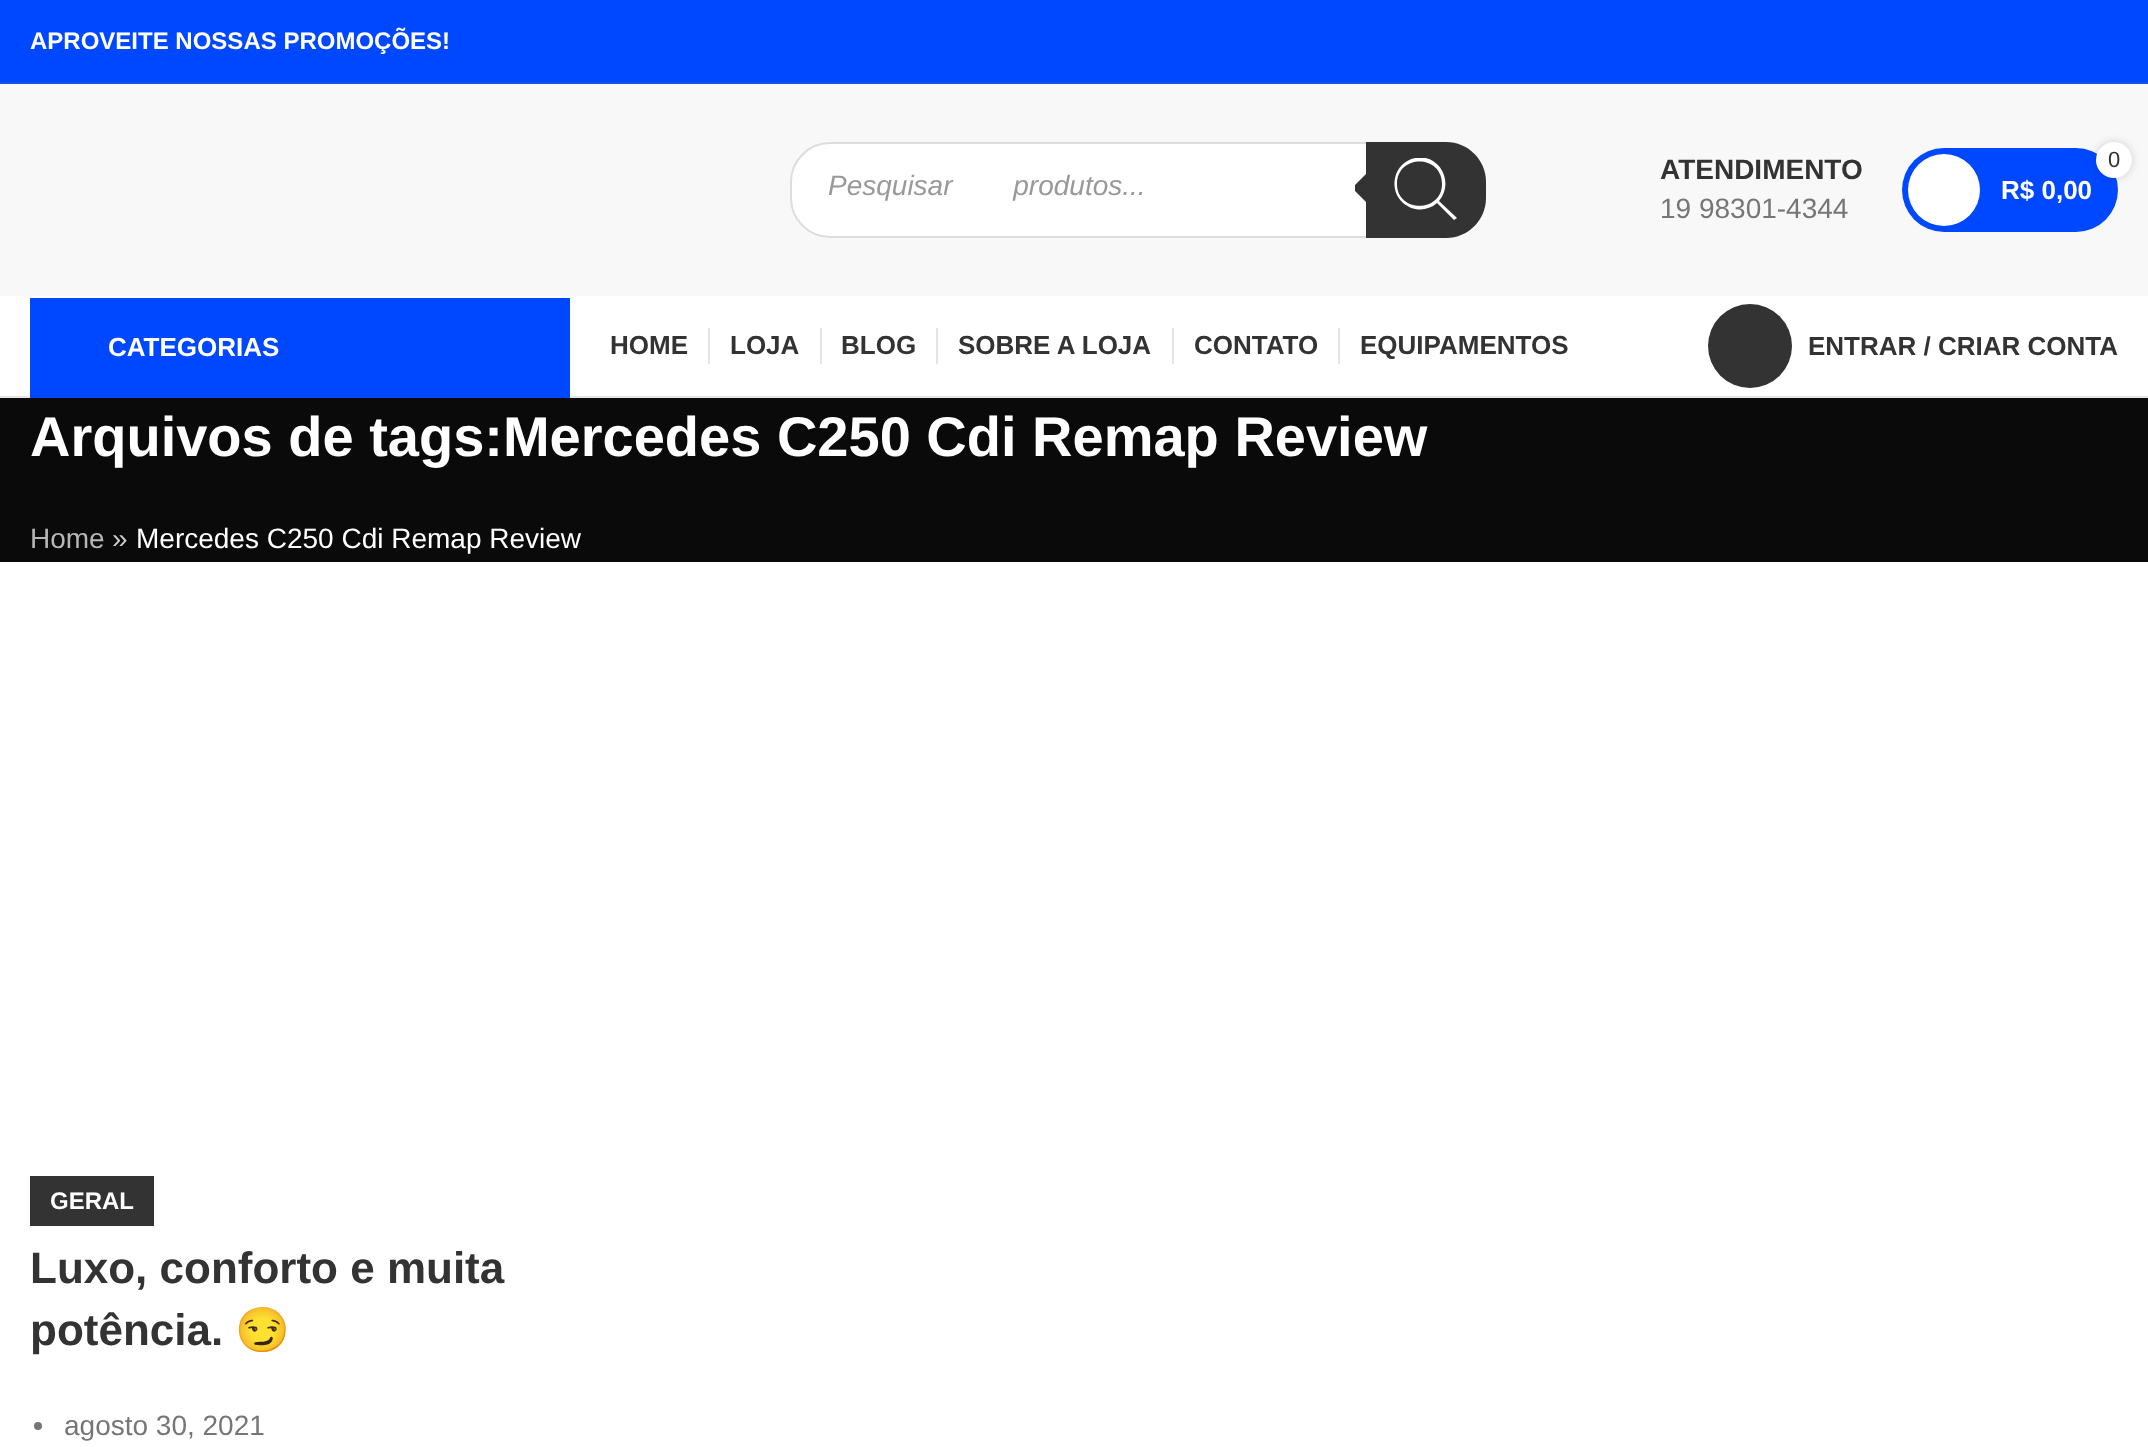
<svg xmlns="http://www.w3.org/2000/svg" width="2148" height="1447">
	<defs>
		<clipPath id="clip1"><rect x="1394" y="158" width="64" height="62" /></clipPath>
	</defs>
	<rect width="100%" height="100%" fill="#FFFFFF" />
	<rect x="0" y="84" width="2148" height="212" fill="#F8F8F8" />
	<rect x="0" y="0" width="2148" height="82" fill="#0048FF" />
	<rect x="0" y="82" width="2148" height="2" fill="#1A53E4" />
	<text x="30" y="49" font-family="Liberation Sans" font-size="24" font-weight="700" fill="#FFFFFF">APROVEITE NOSSAS PROMOÇÕES!</text>
	<rect x="791" y="143" width="694" height="94" rx="39" fill="#FFFFFF" stroke="#DDDDDD" stroke-width="2" />
	<text x="828" y="195" word-spacing="53" font-family="Liberation Sans" font-size="28" font-style="italic" fill="#999999">Pesquisar produtos...</text>
	<path d="M1366 142H1446C1468 142 1486 160 1486 182V198C1486 220 1468 238 1446 238H1366Z" fill="#333333" />
	<path d="M1370 170V206L1355 191V185Z" fill="#333333" />
	<g clip-path="url(#clip1)">
		<path d="M1457 218L1439 201C1455 182 1439 153 1415 158C1410 159 1405 162 1402 165C1398 169 1396 173 1395 178C1390 203 1419 219 1437 203L1454 220ZM1397 184C1397 154 1442 154 1442 184C1442 213 1397 213 1397 184Z" fill="#FFFFFF" />
	</g>
	<text x="1660" y="179" font-family="Liberation Sans" font-size="28" font-weight="700" fill="#333333">ATENDIMENTO</text>
	<text x="1660" y="218" font-family="Liberation Sans" font-size="28" fill="#767676">19 98301-4344</text>
	<rect x="1902" y="148" width="216" height="84" rx="42" fill="#0048FF" />
	<circle cx="1944" cy="190" r="36" fill="#FFFFFF" />
	<rect x="2096" y="142" width="36" height="36" rx="18" fill="#000000" fill-opacity="0.17" filter="blur(4px)" />
	<circle cx="2114" cy="160" r="18" fill="#FFFFFF" />
	<text x="2108" y="167" font-family="Liberation Sans" font-size="22" fill="#333333">0</text>
	<text x="2001" y="199" font-family="Liberation Sans" font-size="26" font-weight="700" fill="#FFFFFF">R$ 0,00</text>
	<rect x="0" y="396" width="2148" height="2" fill="#E6E6E6" />
	<rect x="30" y="298" width="540" height="100" fill="#0048FF" />
	<text x="108" y="356" font-family="Liberation Sans" font-size="26" font-weight="700" fill="#FFFFFF">CATEGORIAS</text>
	<text x="610" y="354" font-family="Liberation Sans" font-size="26" font-weight="700" fill="#333333">HOME</text>
	<rect x="708" y="328" width="2" height="36" fill="#E4E4E4" />
	<text x="730" y="354" font-family="Liberation Sans" font-size="26" font-weight="700" fill="#333333">LOJA</text>
	<rect x="820" y="328" width="2" height="36" fill="#E4E4E4" />
	<text x="841" y="354" font-family="Liberation Sans" font-size="26" font-weight="700" fill="#333333">BLOG</text>
	<rect x="936" y="328" width="2" height="36" fill="#E4E4E4" />
	<text x="958" y="354" font-family="Liberation Sans" font-size="26" font-weight="700" fill="#333333">SOBRE A LOJA</text>
	<rect x="1172" y="328" width="2" height="36" fill="#E4E4E4" />
	<text x="1194" y="354" font-family="Liberation Sans" font-size="26" font-weight="700" fill="#333333">CONTATO</text>
	<rect x="1338" y="328" width="2" height="36" fill="#E4E4E4" />
	<text x="1360" y="354" font-family="Liberation Sans" font-size="26" font-weight="700" fill="#333333">EQUIPAMENTOS</text>
	<circle cx="1750" cy="346" r="42" fill="#333333" />
	<text x="1808" y="355" font-family="Liberation Sans" font-size="26" font-weight="700" fill="#333333">ENTRAR / CRIAR CONTA</text>
	<rect x="0" y="398" width="2148" height="164" fill="#0A0A0A" />
	<text x="30" y="456" font-family="Liberation Sans" font-size="56" font-weight="700" fill="#FFFFFF">Arquivos de tags:Mercedes C250 Cdi Remap Review</text>
	<text x="30" y="548" font-family="Liberation Sans" font-size="28" fill="#B6B6B6">Home</text>
	<text x="112" y="548" font-family="Liberation Sans" font-size="28" fill="#CECECE">»</text>
	<text x="136" y="548" font-family="Liberation Sans" font-size="28" fill="#FFFFFF">Mercedes C250 Cdi Remap Review</text>
	<rect x="30" y="1176" width="124" height="50" fill="#333333" />
	<text x="50" y="1209" font-family="Liberation Sans" font-size="24" font-weight="700" fill="#FFFFFF">GERAL</text>
	<g font-family="Liberation Sans" font-size="44" font-weight="700" fill="#333333">
		<text x="30" y="1283">Luxo, conforto e muita</text>
		<text x="30" y="1345">potência.</text>
	</g>
	<text x="235" y="1345" font-family="Noto Color Emoji" font-size="44" font-weight="700" fill="#333333">😏</text>
	<circle cx="38" cy="1426" r="4" fill="#767676" />
	<text x="64" y="1435" font-family="Liberation Sans" font-size="28" fill="#767676">agosto 30, 2021</text>
</svg>
